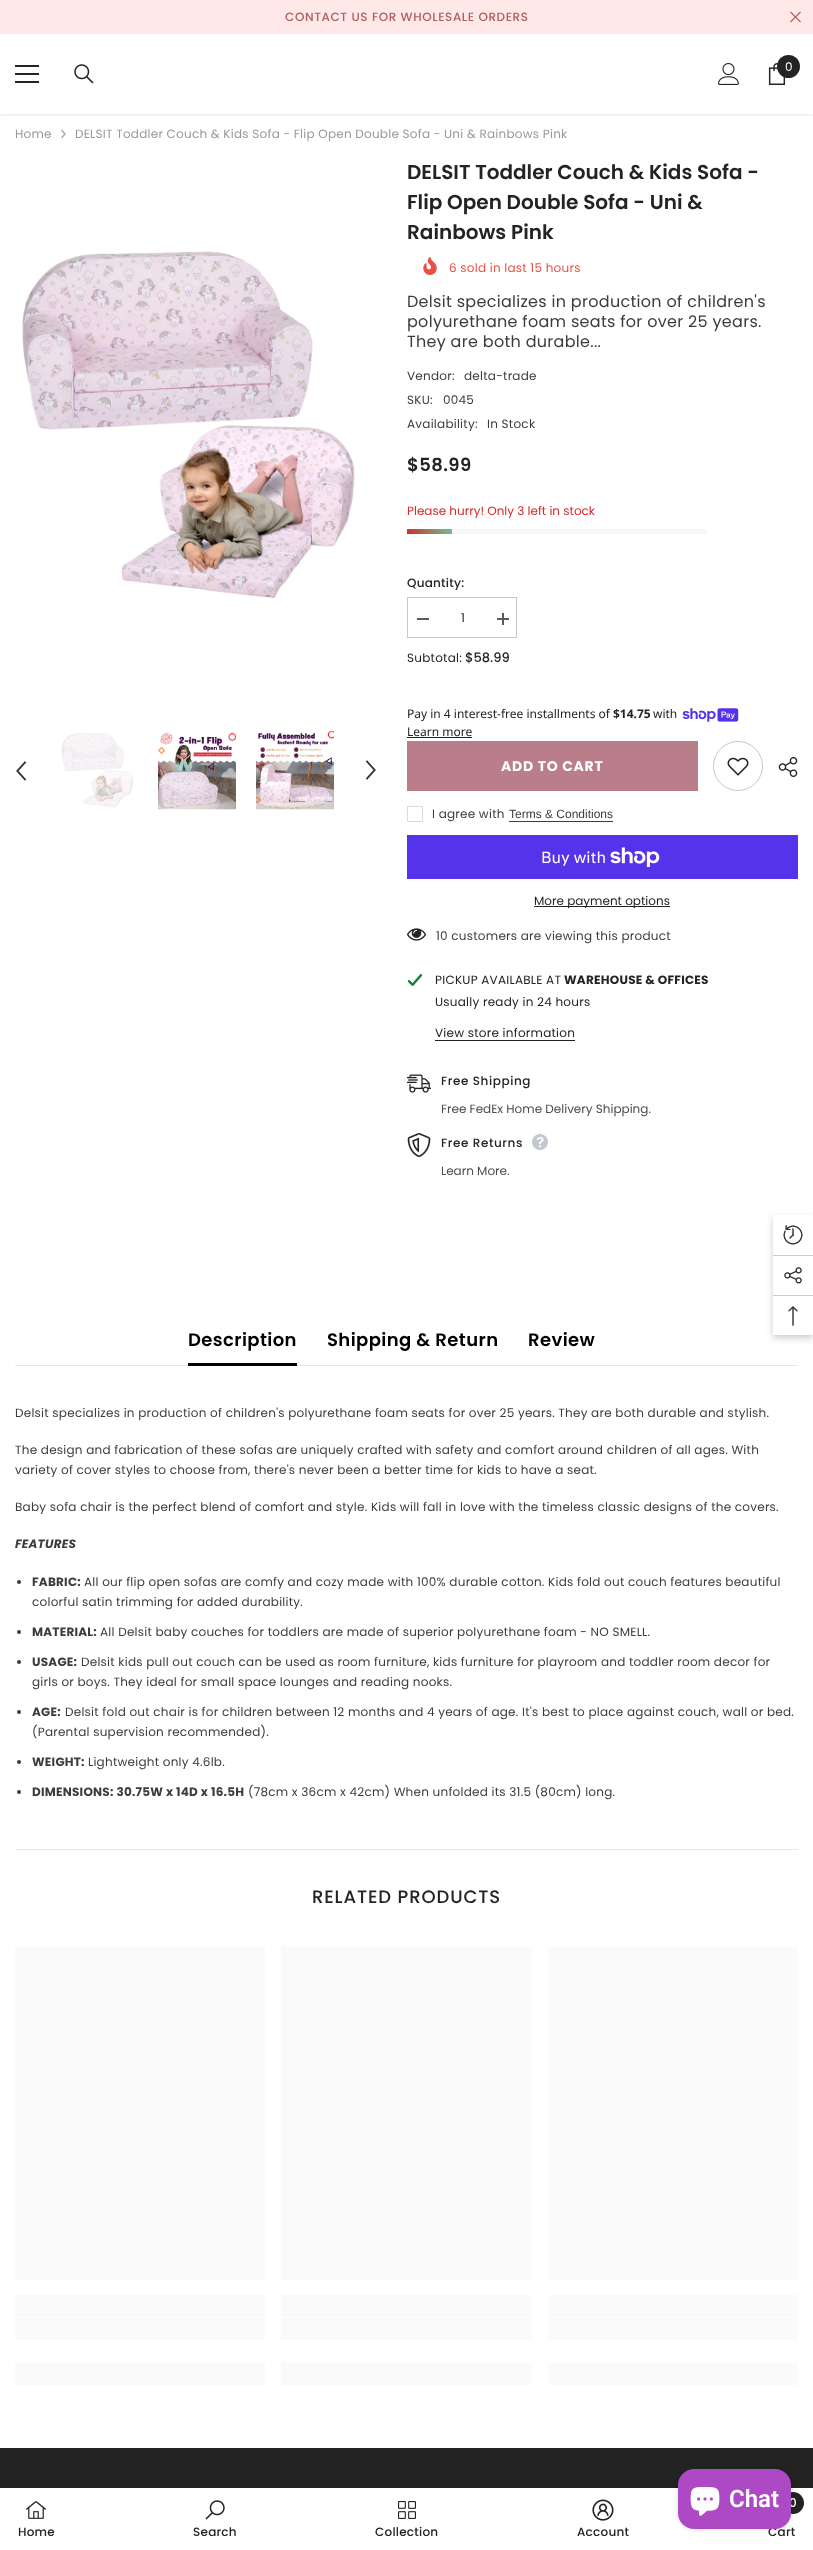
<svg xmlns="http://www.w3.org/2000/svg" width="813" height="2550">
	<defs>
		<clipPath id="clip1"><rect x="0" y="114" width="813" height="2" /></clipPath>
		<linearGradient id="g1" gradientUnits="userSpaceOnUse" x1="417" y1="544" x2="442" y2="519"><stop offset="0" stop-color="#D62828" /><stop offset="1" stop-color="#69C69C" /></linearGradient>
		<linearGradient id="g2" gradientUnits="userSpaceOnUse" x1="-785" y1="2306" x2="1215" y2="2306"><stop offset="0.04" stop-color="#FAFAFA" /><stop offset="0.25" stop-color="#F1F2F3" /><stop offset="0.36" stop-color="#FAFAFA" /></linearGradient>
		<linearGradient id="g3" gradientUnits="userSpaceOnUse" x1="-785" y1="2329" x2="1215" y2="2329"><stop offset="0.04" stop-color="#FAFAFA" /><stop offset="0.25" stop-color="#F1F2F3" /><stop offset="0.36" stop-color="#FAFAFA" /></linearGradient>
		<linearGradient id="g4" gradientUnits="userSpaceOnUse" x1="-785" y1="2374" x2="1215" y2="2374"><stop offset="0.04" stop-color="#FAFAFA" /><stop offset="0.25" stop-color="#F1F2F3" /><stop offset="0.36" stop-color="#FAFAFA" /></linearGradient>
		<linearGradient id="g5" gradientUnits="userSpaceOnUse" x1="-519" y1="2306" x2="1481" y2="2306"><stop offset="0.04" stop-color="#FAFAFA" /><stop offset="0.25" stop-color="#F1F2F3" /><stop offset="0.36" stop-color="#FAFAFA" /></linearGradient>
		<linearGradient id="g6" gradientUnits="userSpaceOnUse" x1="-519" y1="2329" x2="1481" y2="2329"><stop offset="0.04" stop-color="#FAFAFA" /><stop offset="0.25" stop-color="#F1F2F3" /><stop offset="0.36" stop-color="#FAFAFA" /></linearGradient>
		<linearGradient id="g7" gradientUnits="userSpaceOnUse" x1="-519" y1="2374" x2="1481" y2="2374"><stop offset="0.04" stop-color="#FAFAFA" /><stop offset="0.25" stop-color="#F1F2F3" /><stop offset="0.36" stop-color="#FAFAFA" /></linearGradient>
		<linearGradient id="g8" gradientUnits="userSpaceOnUse" x1="-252" y1="2306" x2="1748" y2="2306"><stop offset="0.04" stop-color="#FAFAFA" /><stop offset="0.25" stop-color="#F1F2F3" /><stop offset="0.36" stop-color="#FAFAFA" /></linearGradient>
		<linearGradient id="g9" gradientUnits="userSpaceOnUse" x1="-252" y1="2329" x2="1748" y2="2329"><stop offset="0.04" stop-color="#FAFAFA" /><stop offset="0.25" stop-color="#F1F2F3" /><stop offset="0.36" stop-color="#FAFAFA" /></linearGradient>
		<linearGradient id="g10" gradientUnits="userSpaceOnUse" x1="-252" y1="2374" x2="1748" y2="2374"><stop offset="0.04" stop-color="#FAFAFA" /><stop offset="0.25" stop-color="#F1F2F3" /><stop offset="0.36" stop-color="#FAFAFA" /></linearGradient>
		<clipPath id="clip2"><path d="M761 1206H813V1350H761ZM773 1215H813V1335H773Z" clip-rule="evenodd" /></clipPath>
	</defs>
	<rect width="100%" height="100%" fill="#FFFFFF" />
	<rect x="0" y="0" width="813" height="34" fill="#FFE8E8" />
	<text x="285" y="21" font-family="Poppins" font-size="12" font-weight="500" letter-spacing="0.6" fill="#B05D5D">CONTACT US FOR WHOLESALE ORDERS</text>
	<image x="790" y="11" width="11" height="12" href="assets/img1.png" />
	<g clip-path="url(#clip1)">
		<rect x="0" y="35" width="813" height="80" fill="#000000" fill-opacity="0.1" filter="blur(1.5px)" />
	</g>
	<rect x="15" y="73" width="24" height="2" fill="#232323" />
	<rect x="15" y="65" width="24" height="2" fill="#232323" />
	<rect x="15" y="81" width="24" height="2" fill="#232323" />
	<image x="74" y="64" width="20" height="20" href="assets/img2.png" />
	<image x="718" y="63" width="21" height="22" href="assets/img3.png" />
	<image x="768" y="63" width="18" height="22" href="assets/img4.png" />
	<circle cx="788.5" cy="66.5" r="11.5" fill="#232323" />
	<text x="785" y="71" font-family="Poppins" font-size="12" fill="#FFFFFF">0</text>
	<text x="15" y="138" font-family="Poppins" font-size="12" letter-spacing="0.24" fill="#999999">Home</text>
	<image x="61" y="129" width="5" height="10" href="assets/img5.png" />
	<text x="75" y="138" font-family="Poppins" font-size="12" letter-spacing="0.24" fill="#999999">DELSIT Toddler Couch &amp; Kids Sofa - Flip Open Double Sofa - Uni &amp; Rainbows Pink</text>
	<image x="22" y="251" width="333" height="347" href="assets/img6.png" />
	<image x="16" y="761" width="11" height="20" href="assets/img7.png" />
	<image x="61" y="733" width="72" height="75" href="assets/img8.png" />
	<image x="158" y="731" width="78" height="79" href="assets/img9.png" />
	<image x="256" y="731" width="78" height="79" href="assets/img10.png" />
	<image x="365" y="760" width="11" height="20" href="assets/img11.png" />
	<g font-family="Poppins" font-size="20" font-weight="600" fill="#232323">
		<text x="407" y="179">DELSIT Toddler Couch &amp; Kids Sofa -</text>
		<text x="407" y="209">Flip Open Double Sofa - Uni &amp;</text>
		<text x="407" y="239">Rainbows Pink</text>
	</g>
	<image x="423" y="257" width="14" height="18" href="assets/img12.png" />
	<text x="449" y="272" font-family="Poppins" font-size="12" letter-spacing="0.24" fill="#E95144">6 sold in last 15 hours</text>
	<g font-family="Poppins" font-size="16" letter-spacing="0.3" fill="#3C3C3C">
		<text x="407" y="307">Delsit specializes in production of children's</text>
		<text x="407" y="327">polyurethane foam seats for over 25 years.</text>
		<text x="407" y="347">They are both durable...</text>
	</g>
	<g font-family="Poppins" font-size="12" letter-spacing="0.24" fill="#3C3C3C">
		<text x="407" y="380">Vendor:</text>
		<text x="464" y="380">delta-trade</text>
		<text x="407" y="404">SKU:</text>
		<text x="443" y="404">0045</text>
		<text x="407" y="428">Availability:</text>
		<text x="487" y="428">In Stock</text>
	</g>
	<text x="407" y="471" font-family="Poppins" font-size="18" font-weight="600" letter-spacing="0.4" fill="#232323">$58.99</text>
	<text x="407" y="515" font-family="Poppins" font-size="12" fill="#D62828">Please hurry! Only 3 left in stock</text>
	<rect x="452" y="529" width="255" height="5" fill="#F8F8F8" />
	<rect x="407" y="529" width="45" height="5" fill="url(#g1)" />
	<text x="407" y="587" font-family="Poppins" font-size="12" font-weight="500" letter-spacing="0.24" fill="#232323">Quantity:</text>
	<rect x="407.5" y="597.5" width="109" height="40" fill="none" stroke="#C7C7C7" />
	<rect x="417" y="618" width="12" height="2" fill="#5A5A5A" />
	<text x="461" y="622" font-family="Poppins" font-size="12" letter-spacing="0.24" fill="#232323">1</text>
	<rect x="497" y="618" width="12" height="2" fill="#5A5A5A" />
	<rect x="502" y="613" width="2" height="12" fill="#5A5A5A" />
	<text x="407" y="662" font-family="Poppins" font-size="12" letter-spacing="0.24" fill="#232323">Subtotal:</text>
	<text x="465" y="662" font-family="Poppins" font-size="13" font-weight="500" fill="#232323">$58.99</text>
	<text x="407" y="718" font-family="Noto Sans" font-size="12" fill="#232323">Pay in 4 interest-free installments of</text>
	<text x="613" y="718" font-family="Noto Sans" font-size="12" font-weight="700" fill="#232323">$14.75</text>
	<text x="653" y="718" font-family="Noto Sans" font-size="12" fill="#232323">with</text>
	<image x="682" y="708" width="57" height="14" href="assets/img13.png" />
	<text x="407" y="736" font-family="Noto Sans" font-size="12" fill="#232323">Learn more</text>
	<rect x="407" y="737" width="65" height="1" fill="#232323" />
	<rect x="407" y="741" width="291" height="50" fill="#B97E89" />
	<text x="501" y="771" font-family="Poppins" font-size="14" font-weight="700" letter-spacing="0.75" fill="#FFFFFF">ADD TO CART</text>
	<circle cx="738" cy="766" r="24.5" fill="none" stroke="#C7C7C7" />
	<image x="727" y="757" width="22" height="19" href="assets/img14.png" />
	<image x="778" y="757" width="20" height="20" href="assets/img15.png" />
	<rect x="407.5" y="806.5" width="15" height="15" fill="none" stroke="#DBDBDB" />
	<text x="432" y="818" font-family="Poppins" font-size="12" letter-spacing="0.24" fill="#3C3C3C">I agree with</text>
	<text x="509" y="818" font-family="Liberation Sans" font-size="12" fill="#3C3C3C">Terms &amp; Conditions</text>
	<rect x="509" y="821" width="104" height="1" fill="#3C3C3C" />
	<rect x="407" y="835" width="391" height="44" fill="#5433EB" />
	<text x="541" y="863" font-family="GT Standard" font-size="16" fill="#FFFFFF">Buy with</text>
	<image x="610" y="847" width="50" height="20" href="assets/img16.png" />
	<rect x="534" y="906" width="136" height="1" fill="#232323" />
	<text x="534" y="905" font-family="Poppins" font-size="12" fill="#232323">More payment options</text>
	<image x="407" y="928" width="19" height="13" href="assets/img17.png" />
	<text x="436" y="940" font-family="Poppins" font-size="12" letter-spacing="0.24" fill="#3C3C3C">10 customers are viewing this product</text>
	<image x="407" y="973" width="16" height="14" href="assets/img18.png" />
	<text x="435" y="984" font-family="Poppins" font-size="12" letter-spacing="0.24" fill="#232323">PICKUP AVAILABLE AT</text>
	<text x="564" y="984" font-family="Poppins" font-size="12" font-weight="700" letter-spacing="0.24" fill="#232323">WAREHOUSE &amp; OFFICES</text>
	<g font-family="Poppins" font-size="12" letter-spacing="0.24" fill="#232323">
		<text x="435" y="1006">Usually ready in 24 hours</text>
		<text x="435" y="1037">View store information</text>
	</g>
	<rect x="435" y="1040" width="140" height="1" fill="#232323" />
	<image x="407" y="1074" width="24" height="19" href="assets/img19.png" />
	<text x="441" y="1085" font-family="Poppins" font-size="12" font-weight="500" letter-spacing="0.6" fill="#232323">Free Shipping</text>
	<text x="441" y="1113" font-family="Poppins" font-size="12" fill="#4D4D4D">Free FedEx Home Delivery Shipping.</text>
	<image x="407" y="1133" width="24" height="24" href="assets/img20.png" />
	<text x="441" y="1147" font-family="Poppins" font-size="12" font-weight="500" letter-spacing="0.6" fill="#232323">Free Returns</text>
	<image x="532" y="1134" width="16" height="16" href="assets/img21.png" />
	<text x="441" y="1175" font-family="Poppins" font-size="12" fill="#4D4D4D">Learn More.</text>
	<rect x="15" y="1365" width="783" height="1" fill="#E6E6E6" />
	<text x="188" y="1346" font-family="Poppins" font-size="18" font-weight="600" letter-spacing="0.4" fill="#000000">Description</text>
	<rect x="188" y="1363" width="109" height="3" fill="#000000" />
	<g font-family="Poppins" font-size="18" font-weight="600" letter-spacing="0.4" fill="#000000">
		<text x="327" y="1346">Shipping &amp; Return</text>
		<text x="528" y="1346">Review</text>
	</g>
	<g font-family="Poppins" font-size="12" letter-spacing="0.24" fill="#3C3C3C">
		<text x="15" y="1417">Delsit specializes in production of children's polyurethane foam seats for over 25 years. They are both durable and stylish.</text>
		<text x="15" y="1454">The design and fabrication of these sofas are uniquely crafted with safety and comfort around children of all ages. With</text>
		<text x="15" y="1474">variety of cover styles to choose from, there's never been a better time for kids to have a seat.</text>
		<text x="15" y="1511">Baby sofa chair is the perfect blend of comfort and style. Kids will fall in love with the timeless classic designs of the covers.</text>
	</g>
	<text x="15" y="1548" font-family="Poppins" font-size="12" font-weight="700" font-style="italic" letter-spacing="0.24" fill="#3C3C3C">FEATURES</text>
	<circle cx="19" cy="1582" r="2" fill="#3C3C3C" />
	<text x="32" y="1586" font-family="Poppins" font-size="12" font-weight="700" letter-spacing="0.24" fill="#3C3C3C">FABRIC:</text>
	<g font-family="Poppins" font-size="12" letter-spacing="0.24" fill="#3C3C3C">
		<text x="84" y="1586">All our flip open sofas are comfy and cozy made with 100% durable cotton. Kids fold out couch features beautiful</text>
		<text x="32" y="1606">colorful satin trimming for added durability.</text>
	</g>
	<circle cx="19" cy="1632" r="2" fill="#3C3C3C" />
	<text x="32" y="1636" font-family="Poppins" font-size="12" font-weight="700" letter-spacing="0.24" fill="#3C3C3C">MATERIAL:</text>
	<text x="100" y="1636" font-family="Poppins" font-size="12" letter-spacing="0.24" fill="#3C3C3C">All Delsit baby couches for toddlers are made of superior polyurethane foam - NO SMELL.</text>
	<circle cx="19" cy="1662" r="2" fill="#3C3C3C" />
	<text x="32" y="1666" font-family="Poppins" font-size="12" font-weight="700" letter-spacing="0.24" fill="#3C3C3C">USAGE:</text>
	<g font-family="Poppins" font-size="12" letter-spacing="0.24" fill="#3C3C3C">
		<text x="81" y="1666">Delsit kids pull out couch can be used as room furniture, kids furniture for playroom and toddler room decor for</text>
		<text x="32" y="1686">girls or boys. They ideal for small space lounges and reading nooks.</text>
	</g>
	<circle cx="19" cy="1712" r="2" fill="#3C3C3C" />
	<text x="32" y="1716" font-family="Poppins" font-size="12" font-weight="700" letter-spacing="0.24" fill="#3C3C3C">AGE:</text>
	<g font-family="Poppins" font-size="12" letter-spacing="0.24" fill="#3C3C3C">
		<text x="65" y="1716">Delsit fold out chair is for children between 12 months and 4 years of age. It's best to place against couch, wall or bed.</text>
		<text x="32" y="1736">(Parental supervision recommended).</text>
	</g>
	<circle cx="19" cy="1762" r="2" fill="#3C3C3C" />
	<text x="32" y="1766" font-family="Poppins" font-size="12" font-weight="700" letter-spacing="0.24" fill="#3C3C3C">WEIGHT:</text>
	<text x="88" y="1766" font-family="Poppins" font-size="12" letter-spacing="0.24" fill="#3C3C3C">Lightweight only 4.6lb.</text>
	<circle cx="19" cy="1792" r="2" fill="#3C3C3C" />
	<text x="32" y="1796" font-family="Poppins" font-size="12" font-weight="700" letter-spacing="0.24" fill="#3C3C3C">DIMENSIONS: 30.75W x 14D x 16.5H</text>
	<text x="248" y="1796" font-family="Poppins" font-size="12" letter-spacing="0.24" fill="#3C3C3C">(78cm x 36cm x 42cm) When unfolded its 31.5 (80cm) long.</text>
	<rect x="15" y="1849" width="783" height="1" fill="#E8E8E8" />
	<text x="312" y="1903" font-family="Poppins" font-size="18" font-weight="500" letter-spacing="0.9" fill="#232323">RELATED PRODUCTS</text>
	<rect x="15" y="1947" width="250" height="333" fill="#FAFAFA" />
	<rect x="15" y="2295" width="250" height="22" fill="url(#g2)" />
	<rect x="15" y="2318" width="250" height="22" fill="url(#g3)" />
	<rect x="15" y="2363" width="250" height="22" fill="url(#g4)" />
	<rect x="281" y="1947" width="251" height="333" fill="#FAFAFA" />
	<rect x="281" y="2295" width="251" height="22" fill="url(#g5)" />
	<rect x="281" y="2318" width="251" height="22" fill="url(#g6)" />
	<rect x="281" y="2363" width="251" height="22" fill="url(#g7)" />
	<rect x="548" y="1947" width="250" height="333" fill="#FAFAFA" />
	<rect x="548" y="2295" width="250" height="22" fill="url(#g8)" />
	<rect x="548" y="2318" width="250" height="22" fill="url(#g9)" />
	<rect x="548" y="2363" width="250" height="22" fill="url(#g10)" />
	<rect x="0" y="2448" width="813" height="40" fill="#232323" />
	<rect x="0" y="2488" width="813" height="62" fill="#000000" fill-opacity="0.12" filter="blur(4.5px)" />
	<rect x="0" y="2488" width="813" height="62" fill="#FFFFFF" />
	<image x="26" y="2501" width="20" height="18" href="assets/img22.png" />
	<text x="18" y="2536" font-family="Poppins" font-size="12" font-weight="500" letter-spacing="0.24" fill="#232323">Home</text>
	<image x="205" y="2500" width="20" height="20" href="assets/img23.png" />
	<text x="193" y="2536" font-family="Poppins" font-size="12" font-weight="500" letter-spacing="0.24" fill="#232323">Search</text>
	<image x="398" y="2501" width="18" height="18" href="assets/img24.png" />
	<text x="375" y="2536" font-family="Poppins" font-size="12" font-weight="500" letter-spacing="0.24" fill="#232323">Collection</text>
	<image x="592" y="2499" width="22" height="22" href="assets/img25.png" />
	<text x="577" y="2536" font-family="Poppins" font-size="12" font-weight="500" letter-spacing="0.24" fill="#232323">Account</text>
	<circle cx="793" cy="2503" r="11" fill="#232323" />
	<text x="789" y="2507" font-family="Poppins" font-size="12" font-weight="500" fill="#FFFFFF">0</text>
	<text x="768" y="2536" font-family="Poppins" font-size="12" font-weight="500" letter-spacing="0.24" fill="#232323">Cart</text>
	<g clip-path="url(#clip2)">
		<rect x="773" y="1218" width="40" height="120" fill="#000000" fill-opacity="0.2" filter="blur(3.5px)" />
	</g>
	<image x="783" y="1225" width="20" height="20" href="assets/img26.png" />
	<rect x="773" y="1255" width="40" height="1" fill="#CCCCCC" />
	<image x="784" y="1267" width="18" height="17" href="assets/img27.png" />
	<rect x="773" y="1295" width="40" height="1" fill="#CCCCCC" />
	<image x="788" y="1306" width="10" height="20" href="assets/img28.png" />
	<rect x="678" y="2469" width="113" height="60" rx="16" fill="#000000" fill-opacity="0.15" filter="blur(2.5px)" />
	<rect x="678" y="2469" width="113" height="60" rx="16" fill="#AE49C5" />
	<image x="690" y="2487" width="30" height="29" href="assets/img29.png" />
	<text x="729" y="2507" font-family="Roboto" font-size="24" font-weight="600" fill="#FFFFFF">Chat</text>
</svg>
